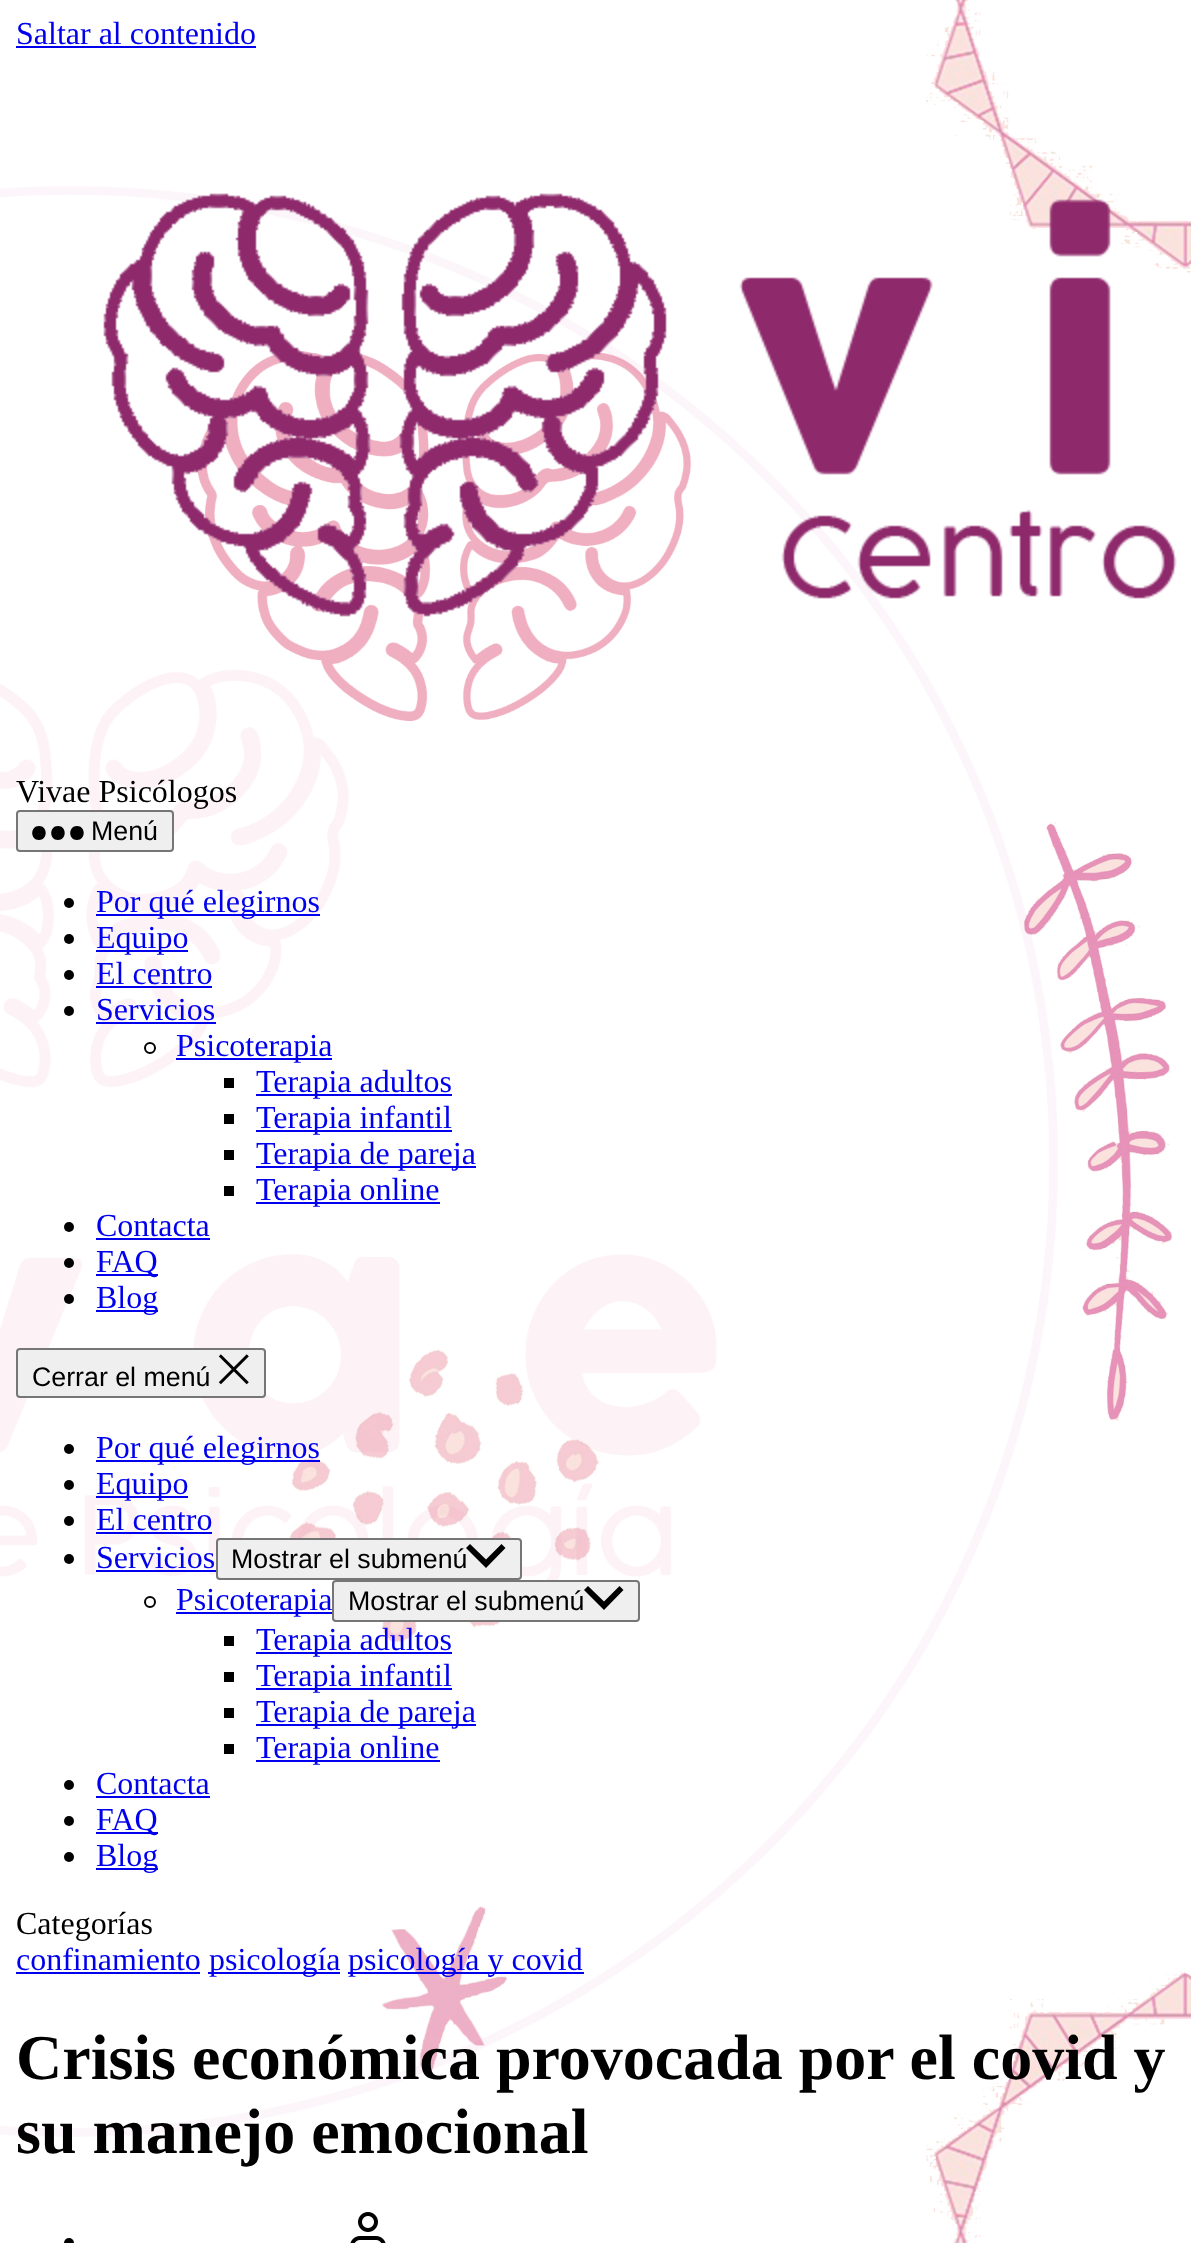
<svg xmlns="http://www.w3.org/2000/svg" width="1191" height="2243">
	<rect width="100%" height="100%" fill="#FFFFFF" />
	<image x="0" y="0" width="1191" height="2243" href="assets/img1.png" />
	<text x="16" y="44" font-family="Liberation Serif" font-size="32" fill="#0000EE">Saltar al contenido</text>
	<rect x="16" y="46" width="240" height="2" fill="#0000EE" />
	<image x="103" y="193" width="1074" height="424" href="assets/img2.png" />
	<text x="16" y="802" font-family="Liberation Serif" font-size="32" fill="#000000">Vivae Psicólogos</text>
	<rect x="17" y="811" width="156" height="40" rx="3" fill="#EFEFEF" stroke="#767676" stroke-width="2" />
	<text x="91" y="840" font-family="Liberation Sans" font-size="26.75" fill="#000000">Menú</text>
	<path d="M39 840C30 840 30 826 39 826C48 826 48 840 39 840ZM58 840C49 840 49 826 58 826C67 826 67 840 58 840ZM77 840C68 840 68 826 77 826C86 826 86 840 77 840Z" fill="#000000" fill-rule="evenodd" />
	<circle cx="69" cy="903" r="5" fill="#000000" />
	<rect x="96" y="914" width="224" height="2" fill="#0000EE" />
	<text x="96" y="912" font-family="Liberation Serif" font-size="32" fill="#0000EE">Por qué elegirnos</text>
	<circle cx="69" cy="939" r="5" fill="#000000" />
	<rect x="96" y="950" width="92" height="2" fill="#0000EE" />
	<text x="96" y="948" font-family="Liberation Serif" font-size="32" fill="#0000EE">Equipo</text>
	<circle cx="69" cy="975" r="5" fill="#000000" />
	<text x="96" y="984" font-family="Liberation Serif" font-size="32" fill="#0000EE">El centro</text>
	<rect x="96" y="986" width="116" height="2" fill="#0000EE" />
	<circle cx="69" cy="1011" r="5" fill="#000000" />
	<text x="96" y="1020" font-family="Liberation Serif" font-size="32" fill="#0000EE">Servicios</text>
	<rect x="96" y="1022" width="120" height="2" fill="#0000EE" />
	<circle cx="150" cy="1048" r="5" fill="none" stroke="#000000" stroke-width="2" />
	<rect x="176" y="1058" width="156" height="2" fill="#0000EE" />
	<text x="176" y="1056" font-family="Liberation Serif" font-size="32" fill="#0000EE">Psicoterapia</text>
	<rect x="224" y="1078" width="10" height="10" fill="#000000" />
	<rect x="256" y="1094" width="196" height="2" fill="#0000EE" />
	<text x="256" y="1092" font-family="Liberation Serif" font-size="32" fill="#0000EE">Terapia adultos</text>
	<rect x="224" y="1114" width="10" height="10" fill="#000000" />
	<rect x="256" y="1130" width="196" height="2" fill="#0000EE" />
	<text x="256" y="1128" font-family="Liberation Serif" font-size="32" fill="#0000EE">Terapia infantil</text>
	<rect x="224" y="1150" width="10" height="10" fill="#000000" />
	<rect x="256" y="1166" width="220" height="2" fill="#0000EE" />
	<text x="256" y="1164" font-family="Liberation Serif" font-size="32" fill="#0000EE">Terapia de pareja</text>
	<rect x="224" y="1186" width="10" height="10" fill="#000000" />
	<rect x="256" y="1202" width="184" height="2" fill="#0000EE" />
	<text x="256" y="1200" font-family="Liberation Serif" font-size="32" fill="#0000EE">Terapia online</text>
	<circle cx="69" cy="1227" r="5" fill="#000000" />
	<text x="96" y="1236" font-family="Liberation Serif" font-size="32" fill="#0000EE">Contacta</text>
	<rect x="96" y="1238" width="114" height="2" fill="#0000EE" />
	<circle cx="69" cy="1263" r="5" fill="#000000" />
	<rect x="96" y="1274" width="62" height="2" fill="#0000EE" />
	<text x="96" y="1272" font-family="Liberation Serif" font-size="32" fill="#0000EE">FAQ</text>
	<circle cx="69" cy="1299" r="5" fill="#000000" />
	<rect x="96" y="1310" width="62" height="2" fill="#0000EE" />
	<text x="96" y="1308" font-family="Liberation Serif" font-size="32" fill="#0000EE">Blog</text>
	<rect x="17" y="1349" width="248" height="48" rx="3" fill="#EFEFEF" stroke="#767676" stroke-width="2" />
	<text x="32" y="1386" font-family="Liberation Sans" font-size="26.75" fill="#000000">Cerrar el menú</text>
	<image x="218" y="1354" width="31" height="31" href="assets/img3.png" />
	<circle cx="69" cy="1449" r="5" fill="#000000" />
	<rect x="96" y="1460" width="224" height="2" fill="#0000EE" />
	<text x="96" y="1458" font-family="Liberation Serif" font-size="32" fill="#0000EE">Por qué elegirnos</text>
	<circle cx="69" cy="1485" r="5" fill="#000000" />
	<rect x="96" y="1496" width="92" height="2" fill="#0000EE" />
	<text x="96" y="1494" font-family="Liberation Serif" font-size="32" fill="#0000EE">Equipo</text>
	<circle cx="69" cy="1521" r="5" fill="#000000" />
	<text x="96" y="1530" font-family="Liberation Serif" font-size="32" fill="#0000EE">El centro</text>
	<rect x="96" y="1532" width="116" height="2" fill="#0000EE" />
	<circle cx="69" cy="1559" r="5" fill="#000000" />
	<text x="96" y="1568" font-family="Liberation Serif" font-size="32" fill="#0000EE">Servicios</text>
	<rect x="96" y="1570" width="120" height="2" fill="#0000EE" />
	<rect x="217" y="1539" width="304" height="40" rx="3" fill="#EFEFEF" stroke="#767676" stroke-width="2" />
	<text x="231" y="1568" font-family="Liberation Sans" font-size="26.75" fill="#000000">Mostrar el submenú</text>
	<path d="M486 1559.5L501.5 1544L505.5 1548L486 1568L466 1548L470 1544Z" fill="#000000" fill-rule="evenodd" />
	<circle cx="150" cy="1602" r="5" fill="none" stroke="#000000" stroke-width="2" />
	<rect x="176" y="1612" width="156" height="2" fill="#0000EE" />
	<text x="176" y="1610" font-family="Liberation Serif" font-size="32" fill="#0000EE">Psicoterapia</text>
	<rect x="333" y="1581" width="306" height="40" rx="3" fill="#EFEFEF" stroke="#767676" stroke-width="2" />
	<text x="348" y="1610" font-family="Liberation Sans" font-size="26.75" fill="#000000">Mostrar el submenú</text>
	<path d="M604 1601.5L619.5 1586L623.5 1590L604 1610L584 1590L588 1586Z" fill="#000000" fill-rule="evenodd" />
	<rect x="224" y="1636" width="10" height="10" fill="#000000" />
	<rect x="256" y="1652" width="196" height="2" fill="#0000EE" />
	<text x="256" y="1650" font-family="Liberation Serif" font-size="32" fill="#0000EE">Terapia adultos</text>
	<rect x="224" y="1672" width="10" height="10" fill="#000000" />
	<rect x="256" y="1688" width="196" height="2" fill="#0000EE" />
	<text x="256" y="1686" font-family="Liberation Serif" font-size="32" fill="#0000EE">Terapia infantil</text>
	<rect x="224" y="1708" width="10" height="10" fill="#000000" />
	<rect x="256" y="1724" width="220" height="2" fill="#0000EE" />
	<text x="256" y="1722" font-family="Liberation Serif" font-size="32" fill="#0000EE">Terapia de pareja</text>
	<rect x="224" y="1744" width="10" height="10" fill="#000000" />
	<rect x="256" y="1760" width="184" height="2" fill="#0000EE" />
	<text x="256" y="1758" font-family="Liberation Serif" font-size="32" fill="#0000EE">Terapia online</text>
	<circle cx="69" cy="1785" r="5" fill="#000000" />
	<text x="96" y="1794" font-family="Liberation Serif" font-size="32" fill="#0000EE">Contacta</text>
	<rect x="96" y="1796" width="114" height="2" fill="#0000EE" />
	<circle cx="69" cy="1821" r="5" fill="#000000" />
	<rect x="96" y="1832" width="62" height="2" fill="#0000EE" />
	<text x="96" y="1830" font-family="Liberation Serif" font-size="32" fill="#0000EE">FAQ</text>
	<circle cx="69" cy="1857" r="5" fill="#000000" />
	<rect x="96" y="1868" width="62" height="2" fill="#0000EE" />
	<text x="96" y="1866" font-family="Liberation Serif" font-size="32" fill="#0000EE">Blog</text>
	<text x="16" y="1934" font-family="Liberation Serif" font-size="32" fill="#000000">Categorías</text>
	<text x="16" y="1970" font-family="Liberation Serif" font-size="32" fill="#0000EE">confinamiento</text>
	<rect x="16" y="1972" width="184" height="2" fill="#0000EE" />
	<rect x="208" y="1972" width="132" height="2" fill="#0000EE" />
	<text x="209" y="1970" font-family="Liberation Serif" font-size="32" fill="#0000EE">psicología</text>
	<rect x="348" y="1972" width="236" height="2" fill="#0000EE" />
	<text x="348" y="1970" font-family="Liberation Serif" font-size="32" fill="#0000EE">psicología y covid</text>
	<g font-family="Liberation Serif" font-size="64" font-weight="700" fill="#000000">
		<text x="16" y="2079">Crisis económica provocada por el covid y</text>
		<text x="16" y="2153">su manejo emocional</text>
	</g>
	<circle cx="69" cy="2243" r="5" fill="#000000" />
	<image x="350" y="2212" width="36" height="31" href="assets/img4.png" />
</svg>
